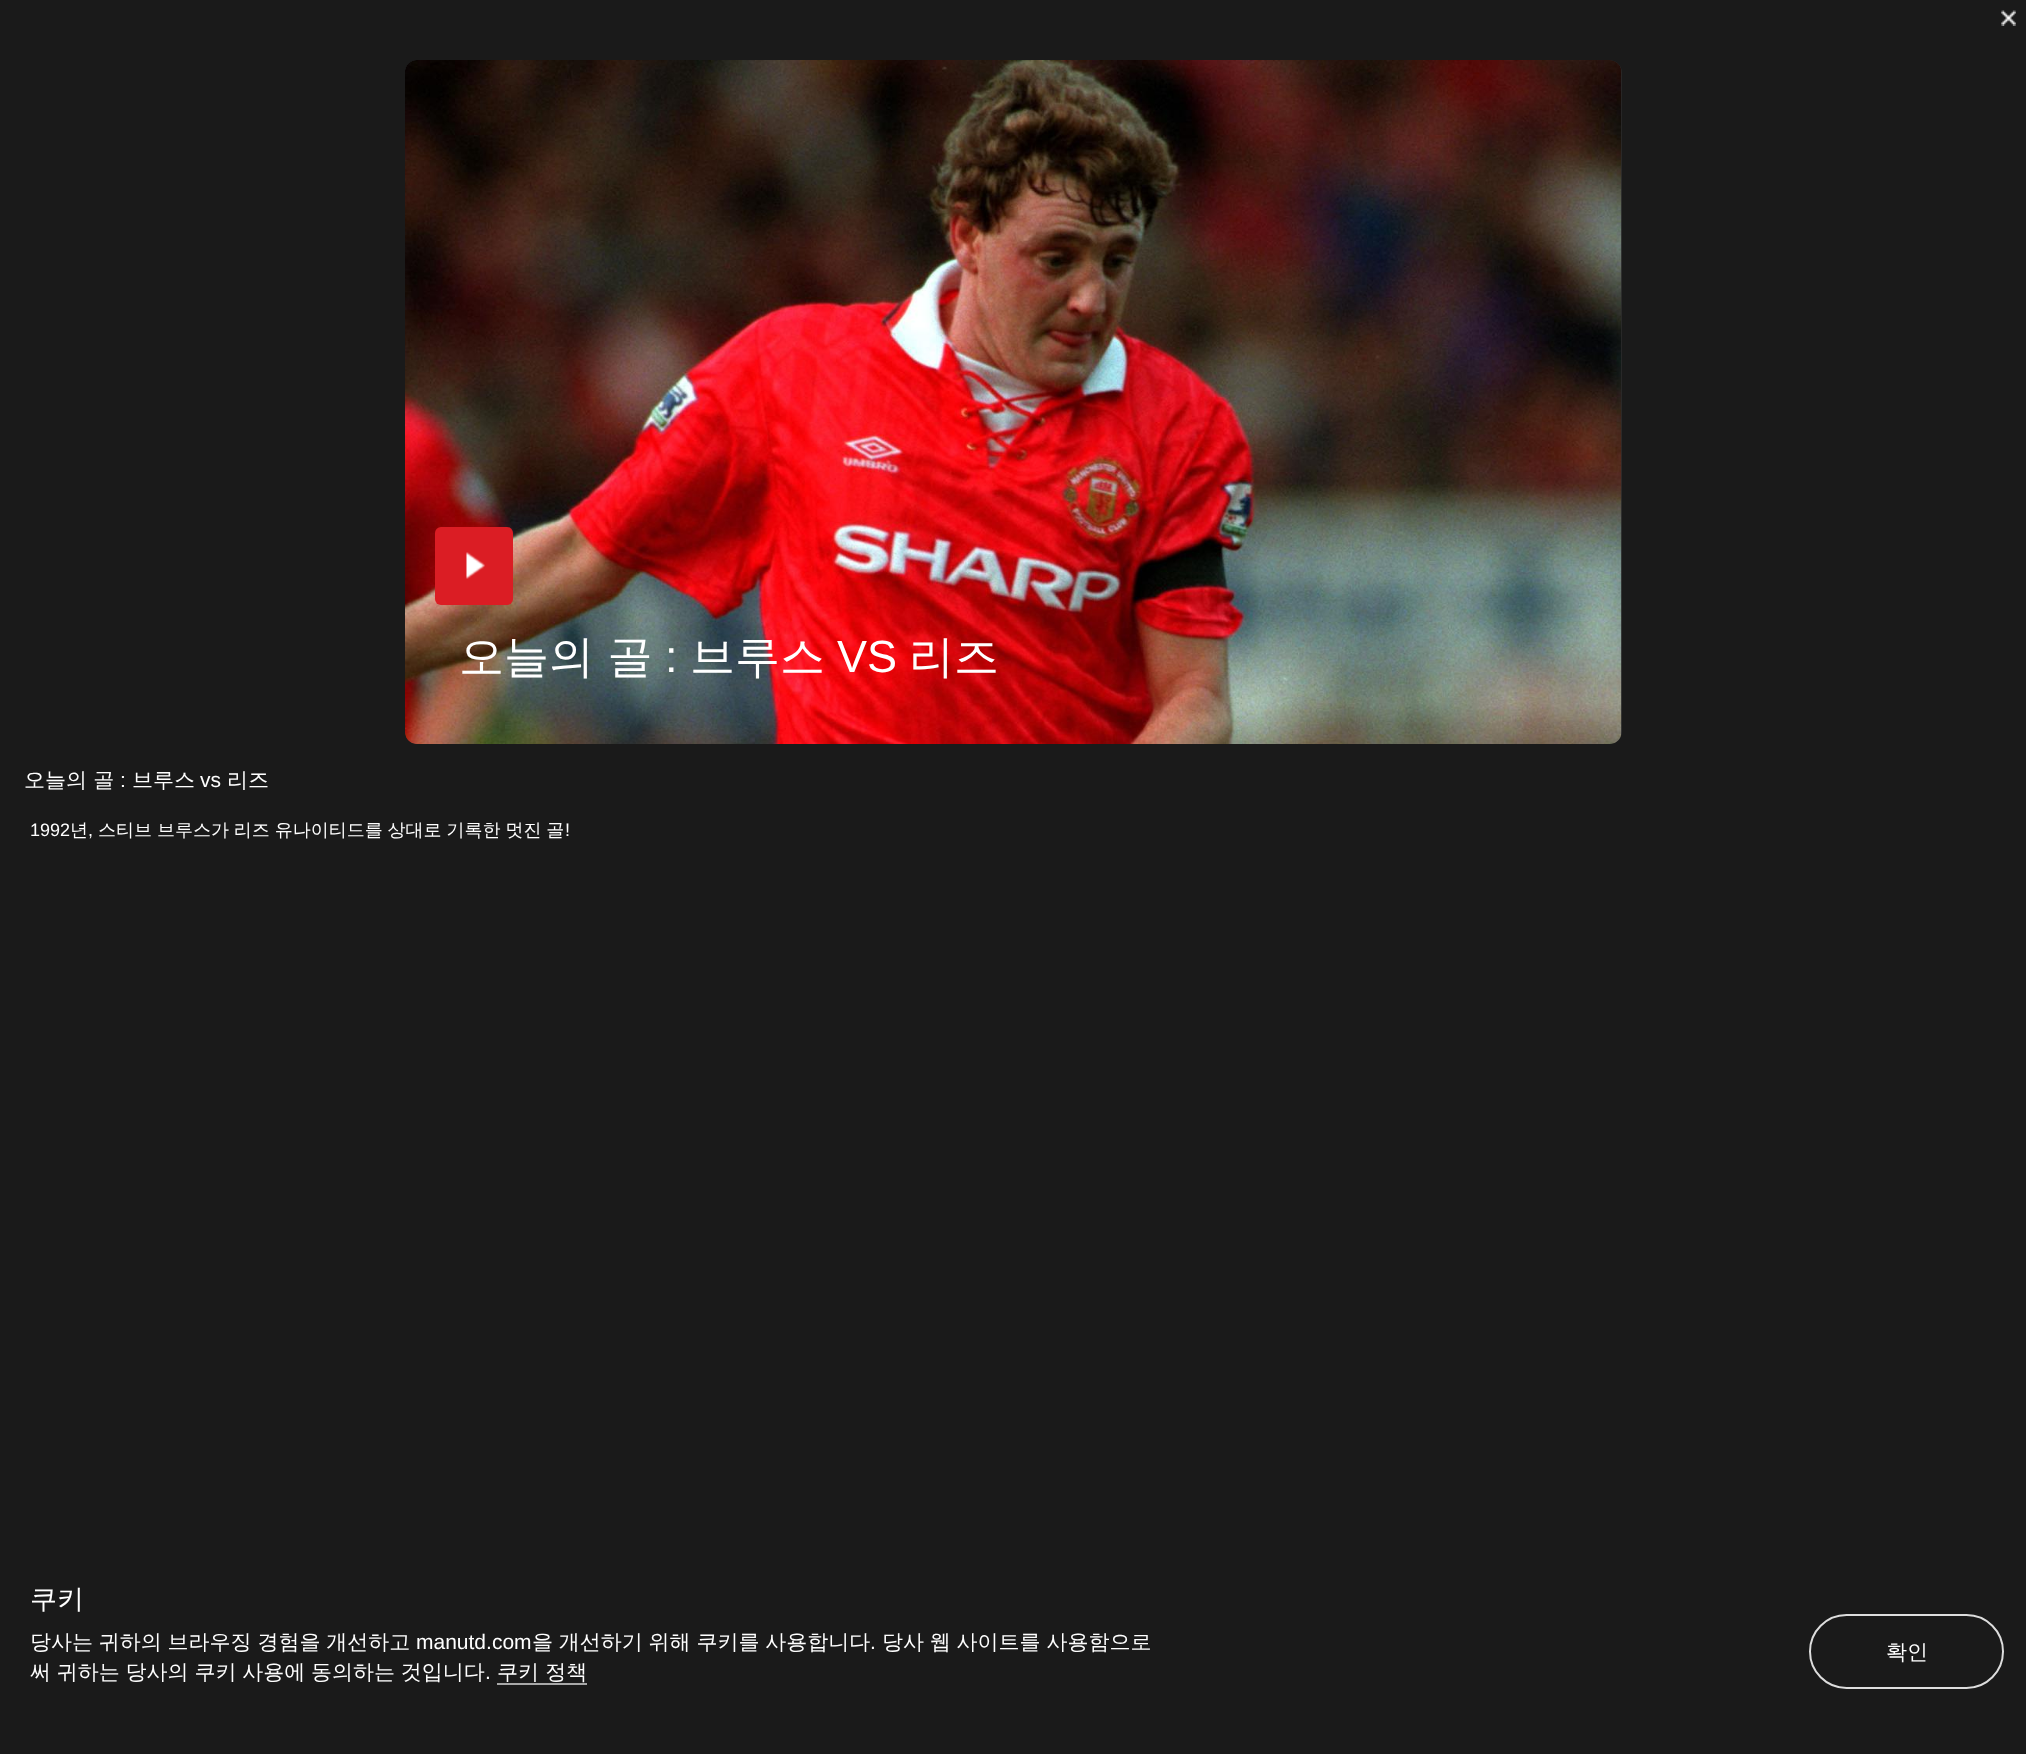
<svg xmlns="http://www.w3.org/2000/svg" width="2026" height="1754">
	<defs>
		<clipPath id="clip1"><path d="M417 60H1610C1616.5 60 1622 65.5 1622 72V733C1622 739 1617 744 1611 744H416C410 744 405 739 405 733V72C405 65.5 410.5 60 417 60Z" /></clipPath>
	</defs>
	<rect width="100%" height="100%" fill="#1A1A1A" />
	<image x="2001" y="10" width="15" height="16" href="assets/img1.png" />
	<g clip-path="url(#clip1)">
		<rect x="405" y="60" width="1217" height="684" rx="12" fill="#2B2B2B" />
	</g>
	<image x="405" y="60" width="1217" height="684" href="assets/img2.png" />
	<rect x="435" y="527" width="78" height="78" rx="6" fill="#DB1D24" />
	<image x="466" y="552" width="19" height="27" href="assets/img3.png" />
	<text x="459" y="672" font-family="WenQuanYi Zen Hei" font-size="45" font-weight="500" fill="#FFFFFF">오늘의 골</text>
	<text x="665" y="672" font-family="Liberation Sans" font-size="45" fill="#FFFFFF">:</text>
	<text x="690" y="672" font-family="WenQuanYi Zen Hei" font-size="45" font-weight="500" fill="#FFFFFF">브루스</text>
	<text x="837" y="672" font-family="Liberation Sans" font-size="45" fill="#FFFFFF">VS</text>
	<text x="909" y="672" font-family="WenQuanYi Zen Hei" font-size="45" font-weight="500" fill="#FFFFFF">리즈</text>
	<text x="24" y="787" font-family="WenQuanYi Zen Hei" font-size="21" font-weight="500" fill="#FFFFFF">오늘의 골</text>
	<text x="120" y="787" font-family="Liberation Sans" font-size="21" fill="#FFFFFF">:</text>
	<text x="132" y="787" font-family="WenQuanYi Zen Hei" font-size="21" font-weight="500" fill="#FFFFFF">브루스</text>
	<text x="200" y="787" font-family="Liberation Sans" font-size="21" fill="#FFFFFF">vs</text>
	<text x="227" y="787" font-family="WenQuanYi Zen Hei" font-size="21" font-weight="500" fill="#FFFFFF">리즈</text>
	<text x="30" y="836" font-family="Liberation Sans" font-size="18" fill="#FFFFFF">1992</text>
	<g font-family="WenQuanYi Zen Hei" font-size="18" font-weight="500" fill="#FFFFFF">
		<text x="70" y="836">년</text>
		<text x="98" y="836" word-spacing="-0.5">스티브 브루스가 리즈 유나이티드를 상대로 기록한 멋진 골</text>
	</g>
	<g font-family="Liberation Sans" font-size="18" fill="#FFFFFF">
		<text x="565" y="836">!</text>
		<text x="88" y="836">,</text>
	</g>
	<text x="30" y="1608" font-family="WenQuanYi Zen Hei" font-size="27" font-weight="500" fill="#FFFFFF">쿠키</text>
	<text x="30" y="1649" word-spacing="-0.5" font-family="WenQuanYi Zen Hei" font-size="21" font-weight="500" fill="#FFFFFF">당사는 귀하의 브라우징 경험을 개선하고</text>
	<text x="416" y="1649" font-family="Liberation Sans" font-size="21" fill="#FFFFFF">manutd.com</text>
	<text x="532" y="1649" word-spacing="-0.5" font-family="WenQuanYi Zen Hei" font-size="21" font-weight="500" fill="#FFFFFF">을 개선하기 위해 쿠키를 사용합니다</text>
	<text x="870" y="1649" font-family="Liberation Sans" font-size="21" fill="#FFFFFF">.</text>
	<g font-family="WenQuanYi Zen Hei" font-size="21" font-weight="500" fill="#FFFFFF">
		<text x="882" y="1649" word-spacing="-0.5">당사 웹 사이트를 사용함으로</text>
		<text x="30" y="1679" word-spacing="-0.5">써 귀하는 당사의 쿠키 사용에 동의하는 것입니다</text>
	</g>
	<text x="485" y="1679" font-family="Liberation Sans" font-size="21" fill="#FFFFFF">.</text>
	<text x="497" y="1679" font-family="WenQuanYi Zen Hei" font-size="21" font-weight="500" fill="#FFFFFF">쿠키 정책</text>
	<rect x="497" y="1683" width="90" height="2" fill="#A8A8A8" />
	<rect x="1810" y="1615" width="193" height="73" rx="36.5" fill="none" stroke="#DDDDDD" stroke-width="2" />
	<text x="1886" y="1659" font-family="WenQuanYi Zen Hei" font-size="21" font-weight="500" fill="#FFFFFF">확인</text>
</svg>
